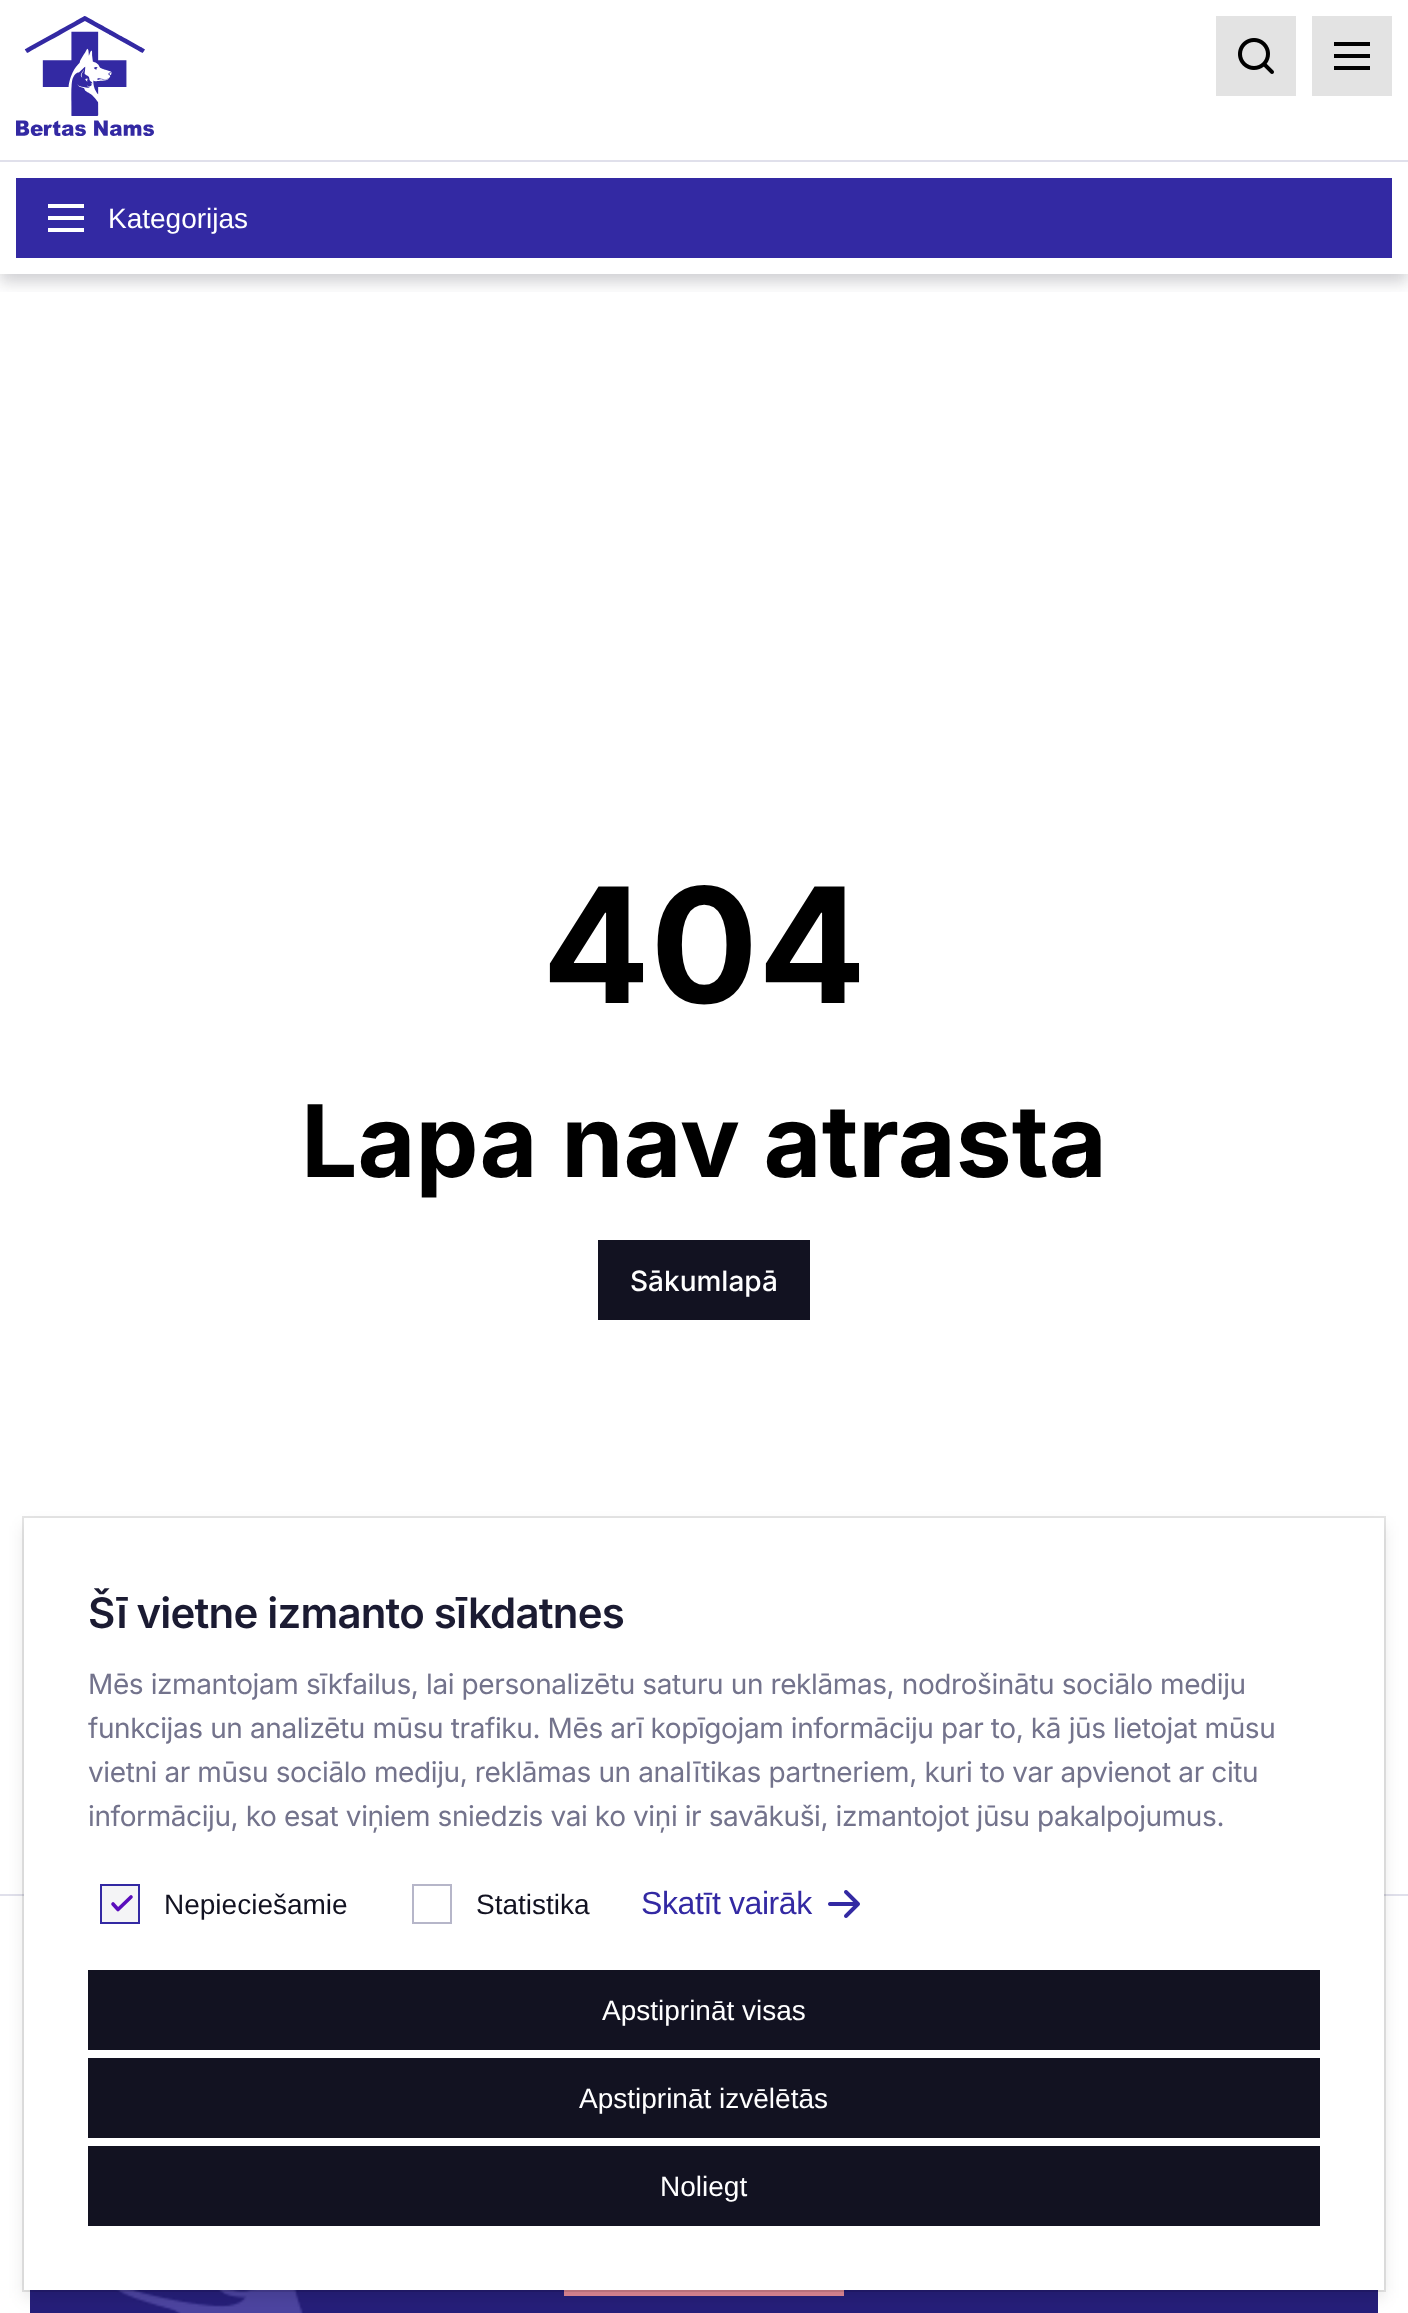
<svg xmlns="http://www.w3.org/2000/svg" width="1408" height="2313">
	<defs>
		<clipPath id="clip1"><rect x="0" y="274" width="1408" height="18" /></clipPath>
	</defs>
	<rect width="100%" height="100%" fill="#FFFFFF" />
	<g clip-path="url(#clip1)">
		<rect x="0" y="8" width="1408" height="274" fill="#121221" fill-opacity="0.2" filter="blur(8px)" />
	</g>
	<rect x="0" y="160" width="1408" height="2" fill="#E0E0EB" />
	<image x="16" y="16" width="138" height="120" href="assets/img1.png" />
	<rect x="1216" y="16" width="80" height="80" fill="#E3E3E3" />
	<image x="1238" y="38" width="36" height="36" href="assets/img2.png" />
	<rect x="1312" y="16" width="80" height="80" fill="#E3E3E3" />
	<rect x="1334" y="42" width="36" height="4" fill="#000000" />
	<rect x="1334" y="54" width="36" height="4" fill="#000000" />
	<rect x="1334" y="66" width="36" height="4" fill="#000000" />
	<rect x="16" y="178" width="1376" height="80" fill="#3329A3" />
	<rect x="48" y="204" width="36" height="4" fill="#FFFFFF" />
	<rect x="48" y="216" width="36" height="4" fill="#FFFFFF" />
	<rect x="48" y="228" width="36" height="4" fill="#FFFFFF" />
	<text x="108" y="228" font-family="Liberation Sans" font-size="28" fill="#FFFFFF">Kategorijas</text>
	<text x="542" y="1003" font-family="Inter" font-size="160" font-weight="700" fill="#000000">404</text>
	<text x="301" y="1177" font-family="Inter" font-size="100" font-weight="700" fill="#000000">Lapa nav atrasta</text>
	<rect x="598" y="1240" width="212" height="80" fill="#121221" />
	<text x="630" y="1291" font-family="Inter" font-size="28" font-weight="500" fill="#FFFFFF">Sākumlapā</text>
	<rect x="0" y="1894" width="1408" height="2" fill="#E0E0EB" />
	<rect x="30" y="2290" width="1348" height="23" fill="#261F7A" />
	<image x="115" y="2290" width="189" height="23" href="assets/img4.png" />
	<rect x="564" y="2290" width="280" height="6" fill="#E18997" />
	<rect x="23" y="1517" width="1362" height="774" fill="none" stroke="#000000" stroke-opacity="0.1" stroke-width="2" />
	<rect x="24" y="1526" width="1360" height="772" fill="#000000" fill-opacity="0.1" filter="blur(8px)" />
	<rect x="24" y="1518" width="1360" height="772" fill="#FFFFFF" />
	<text x="88" y="1628" font-family="Inter" font-size="42" font-weight="600" letter-spacing="-0.8" fill="#1B1B32">Šī vietne izmanto sīkdatnes</text>
	<g font-family="Inter" font-size="28" letter-spacing="-0.4" fill="#73738C">
		<text x="88" y="1694">Mēs izmantojam sīkfailus, lai personalizētu saturu un reklāmas, nodrošinātu sociālo mediju</text>
		<text x="88" y="1738">funkcijas un analizētu mūsu trafiku. Mēs arī kopīgojam informāciju par to, kā jūs lietojat mūsu</text>
		<text x="88" y="1782">vietni ar mūsu sociālo mediju, reklāmas un analītikas partneriem, kuri to var apvienot ar citu</text>
		<text x="88" y="1826">informāciju, ko esat viņiem sniedzis vai ko viņi ir savākuši, izmantojot jūsu pakalpojumus.</text>
	</g>
	<rect x="101" y="1885" width="38" height="38" fill="#F4F4F6" stroke="#3329A3" stroke-width="2" />
	<path d="M118 1909.5L131 1897M113 1904L118 1909.5" fill="none" stroke="#5A0DBC" stroke-width="3.6" stroke-linecap="round" stroke-linejoin="round" />
	<text x="164" y="1914" font-family="Liberation Sans" font-size="28" fill="#121221">Nepieciešamie</text>
	<rect x="413" y="1885" width="38" height="38" fill="none" stroke="#B6B6C9" stroke-width="2" />
	<text x="476" y="1914" font-family="Liberation Sans" font-size="28" fill="#121221">Statistika</text>
	<text x="641" y="1914" font-family="Liberation Sans" font-size="32" letter-spacing="-0.4" fill="#3329A3">Skatīt vairāk</text>
	<image x="828" y="1890" width="32" height="28" href="assets/img3.png" />
	<rect x="88" y="1970" width="1232" height="80" fill="#121221" />
	<text x="602" y="2020" font-family="Liberation Sans" font-size="28" fill="#FFFFFF">Apstiprināt visas</text>
	<rect x="88" y="2058" width="1232" height="80" fill="#121221" />
	<text x="579" y="2108" font-family="Liberation Sans" font-size="28" fill="#FFFFFF">Apstiprināt izvēlētās</text>
	<rect x="88" y="2146" width="1232" height="80" fill="#121221" />
	<text x="660" y="2196" font-family="Liberation Sans" font-size="28" fill="#FFFFFF">Noliegt</text>
</svg>
